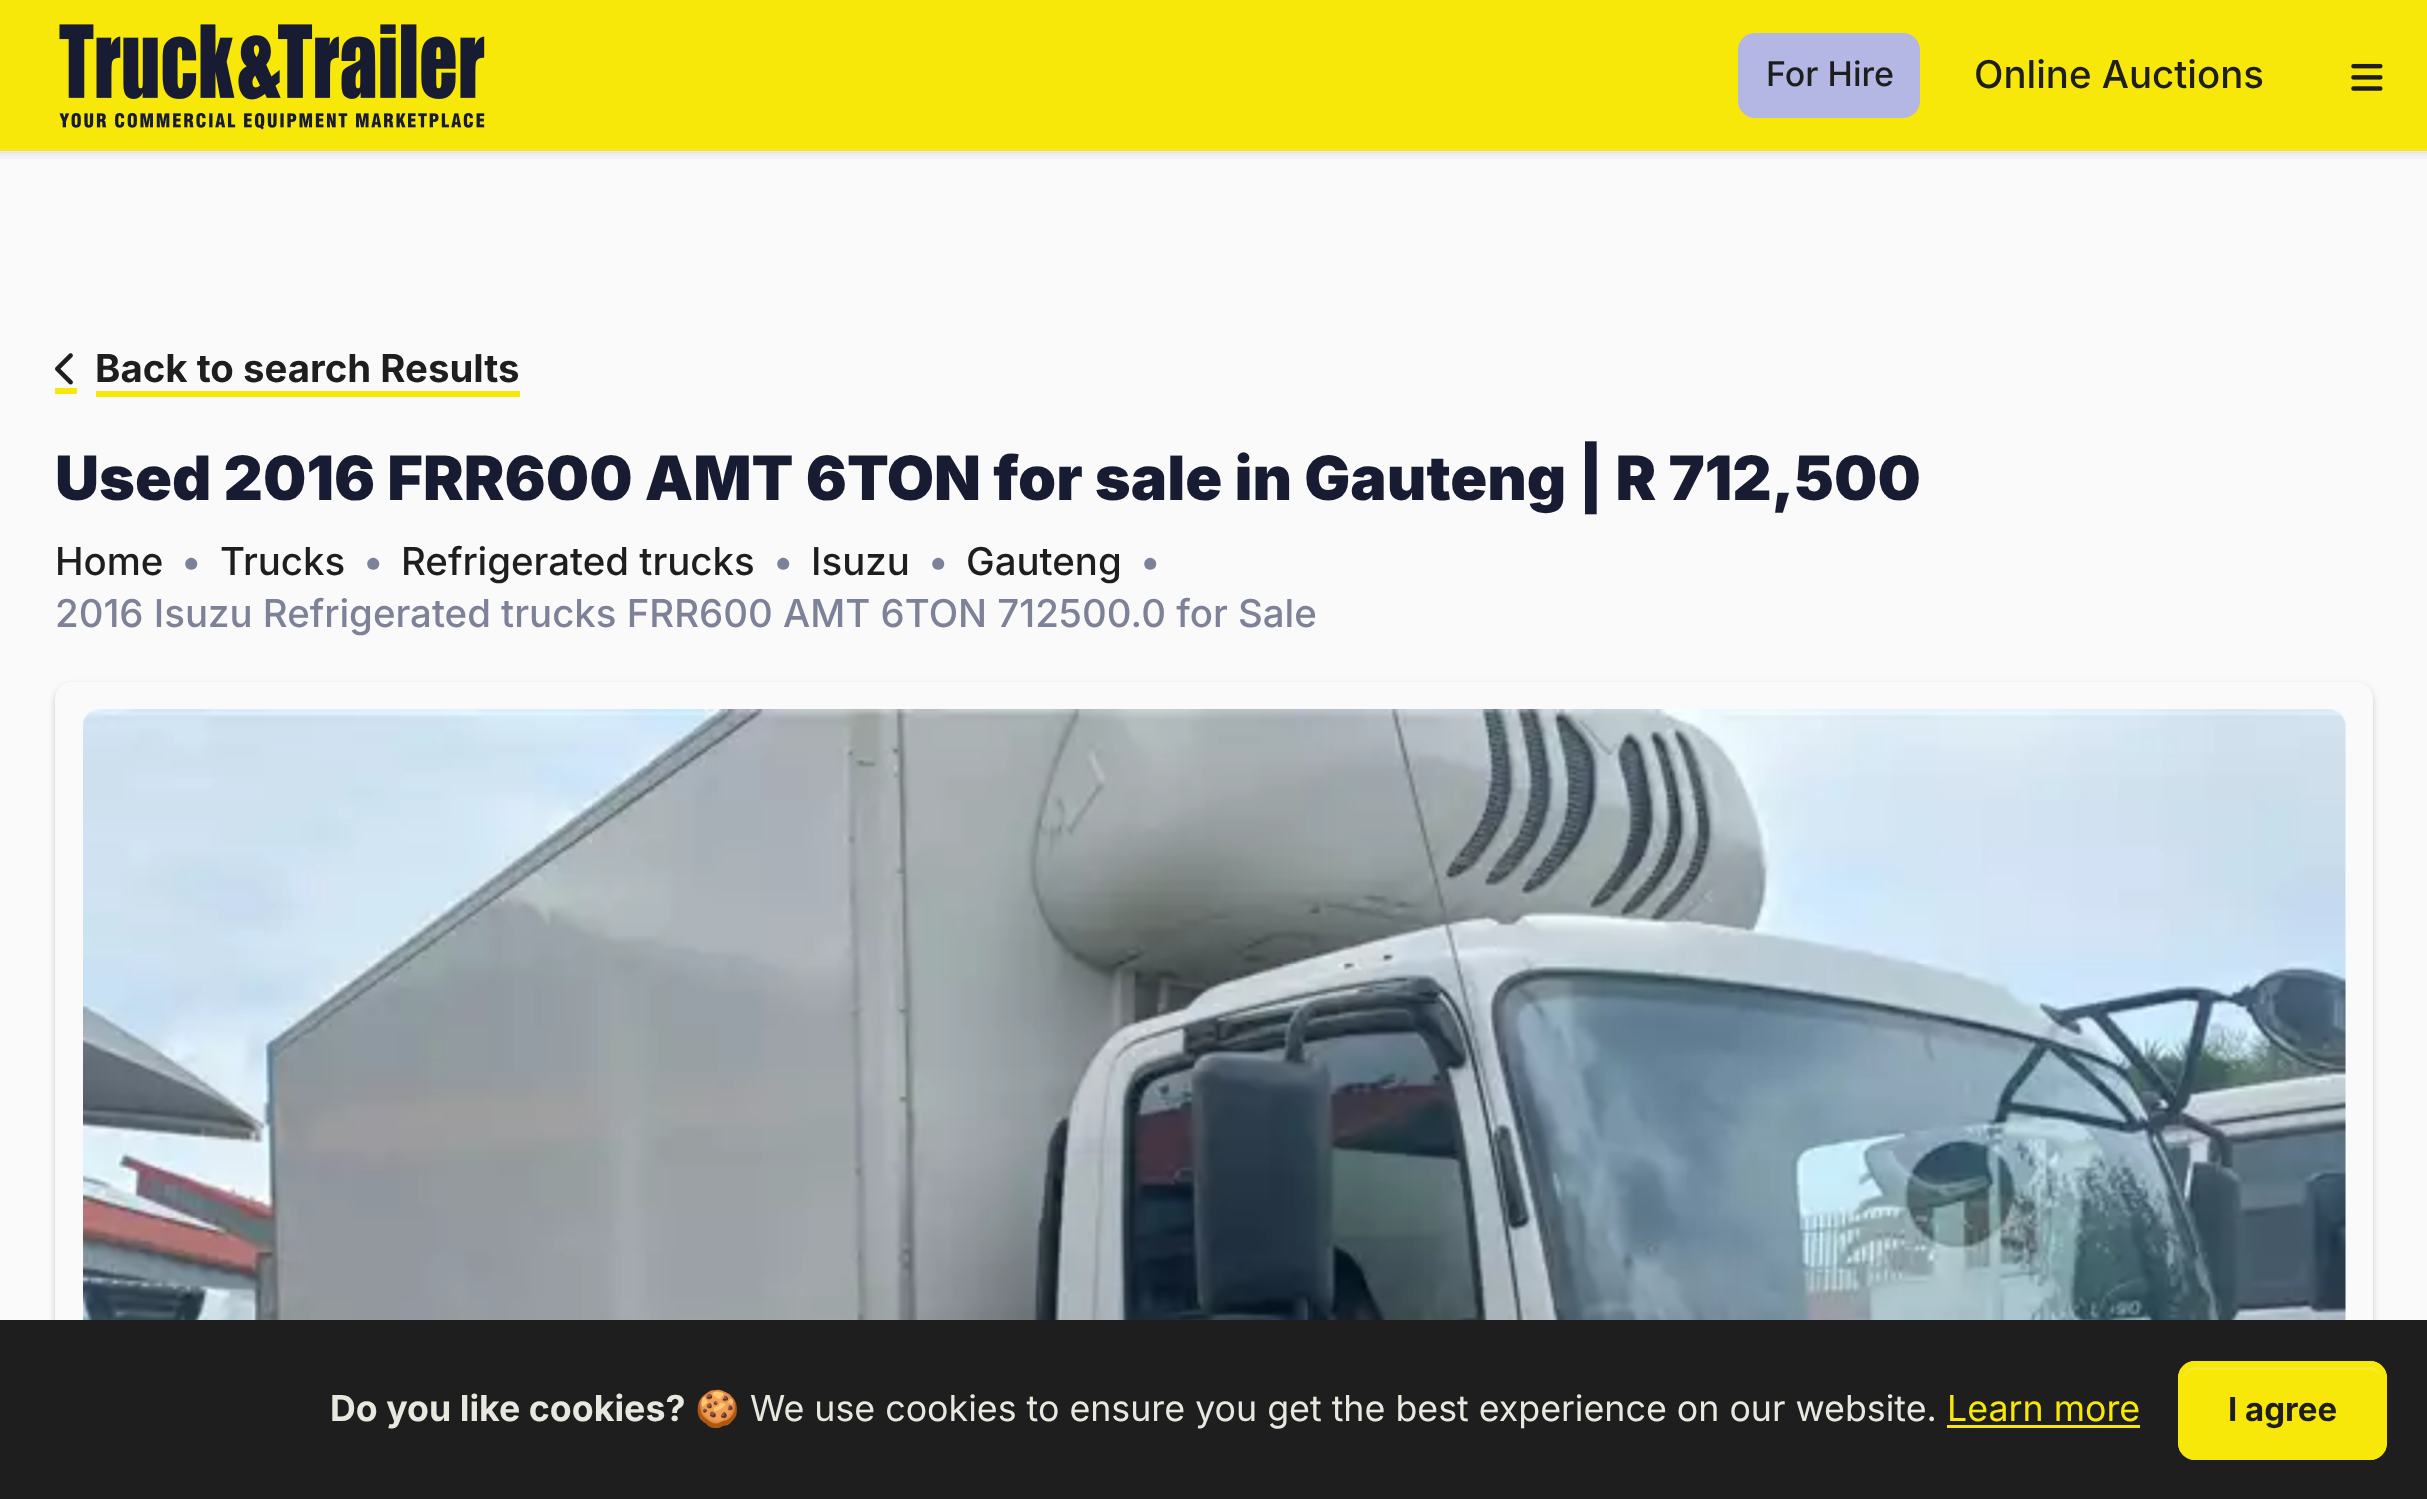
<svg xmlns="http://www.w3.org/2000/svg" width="2427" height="1499">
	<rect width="100%" height="100%" fill="#FAFAFA" />
	<rect x="0" y="0" width="2427" height="151" fill="#F7E80A" />
	<image x="59" y="24" width="426" height="106" href="assets/img1.png" />
	<rect x="1738" y="33" width="182" height="85" rx="17" fill="#B4B6E3" />
	<text x="1766" y="86" font-family="Inter" font-size="34" font-weight="500" fill="#1E1E1E">For Hire</text>
	<text x="1974" y="88" font-family="Inter" font-size="38.4" font-weight="500" fill="#1E1E1E">Online Auctions</text>
	<image x="2351" y="63" width="32" height="28" href="assets/img2.png" />
	<image x="0" y="148" width="2427" height="11" href="assets/img3.png" />
	<rect x="55" y="388" width="22" height="6" fill="#F7E80A" />
	<rect x="96" y="391" width="424" height="6" fill="#F7E80A" />
	<image x="55" y="353" width="18" height="32" href="assets/img4.png" />
	<text x="95" y="382" font-family="Inter" font-size="38.4" font-weight="700" fill="#1E1E1E">Back to search Results</text>
	<text x="55" y="500" font-family="Inter" font-size="61.05" font-weight="900" fill="#181C32">Used 2016 FRR600 AMT 6TON for sale in Gauteng | R 712,500</text>
	<text x="55" y="575" font-family="Inter" font-size="38.4" font-weight="500" fill="#1E1E1E">Home</text>
	<text x="181" y="575" font-family="Inter" font-size="38.4" font-weight="500" fill="#7E8299">•</text>
	<text x="220" y="575" font-family="Inter" font-size="38.4" font-weight="500" fill="#1E1E1E">Trucks</text>
	<text x="363" y="575" font-family="Inter" font-size="38.4" font-weight="500" fill="#7E8299">•</text>
	<text x="401" y="575" font-family="Inter" font-size="38.4" font-weight="500" fill="#1E1E1E">Refrigerated trucks</text>
	<text x="773" y="575" font-family="Inter" font-size="38.4" font-weight="500" fill="#7E8299">•</text>
	<text x="811" y="575" font-family="Inter" font-size="38.4" font-weight="500" fill="#1E1E1E">Isuzu</text>
	<text x="928" y="575" font-family="Inter" font-size="38.4" font-weight="500" fill="#7E8299">•</text>
	<text x="966" y="575" font-family="Inter" font-size="38.4" font-weight="500" fill="#1E1E1E">Gauteng</text>
	<g font-family="Inter" font-size="38.4" font-weight="500" fill="#7E8299">
		<text x="1140" y="575">•</text>
		<text x="55" y="627">2016 Isuzu Refrigerated trucks FRR600 AMT 6TON 712500.0 for Sale</text>
	</g>
	<rect x="55" y="685" width="2318" height="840" rx="17" fill="#000000" fill-opacity="0.2" filter="blur(3px)" />
	<path d="M72 682H2356C2365.5 682 2373 689.5 2373 699V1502H55V699C55 689.5 62.5 682 72 682Z" fill="#FAFAFA" />
	<image x="83" y="709" width="2263" height="611" href="assets/img5.png" />
	<rect x="0" y="1320" width="2427" height="179" fill="#1E1E1E" />
	<text x="330" y="1421" font-family="Inter" font-size="35.75" font-weight="700" fill="#E8E8E0">Do you like cookies?</text>
	<text x="695" y="1421" font-family="Noto Color Emoji" font-size="35.75" fill="#E8E8E0">🍪</text>
	<text x="750" y="1421" font-family="Inter" font-size="35.75" fill="#E8E8E0">We use cookies to ensure you get the best experience on our website.</text>
	<text x="1947" y="1421" font-family="Inter" font-size="35.75" fill="#F7E80A">Learn more</text>
	<rect x="1947" y="1425" width="193" height="3" fill="#F7E80A" />
	<rect x="2178" y="1361" width="209" height="99" rx="17" fill="#F7E80A" />
	<path d="M2195 1370H2370C2376 1370 2382 1375 2382 1381V1378C2382 1372 2377 1367 2371 1367H2195C2189 1367 2184 1372 2184 1378V1381C2184 1375 2189 1370 2195 1370Z" fill="#F7EB2E" />
	<rect x="2181" y="1364" width="203" height="93" rx="14" fill="none" stroke="#F7E80A" stroke-width="6" />
	<text x="2228" y="1421" font-family="Inter" font-size="33" font-weight="700" fill="#1E1E1E">I agree</text>
</svg>
